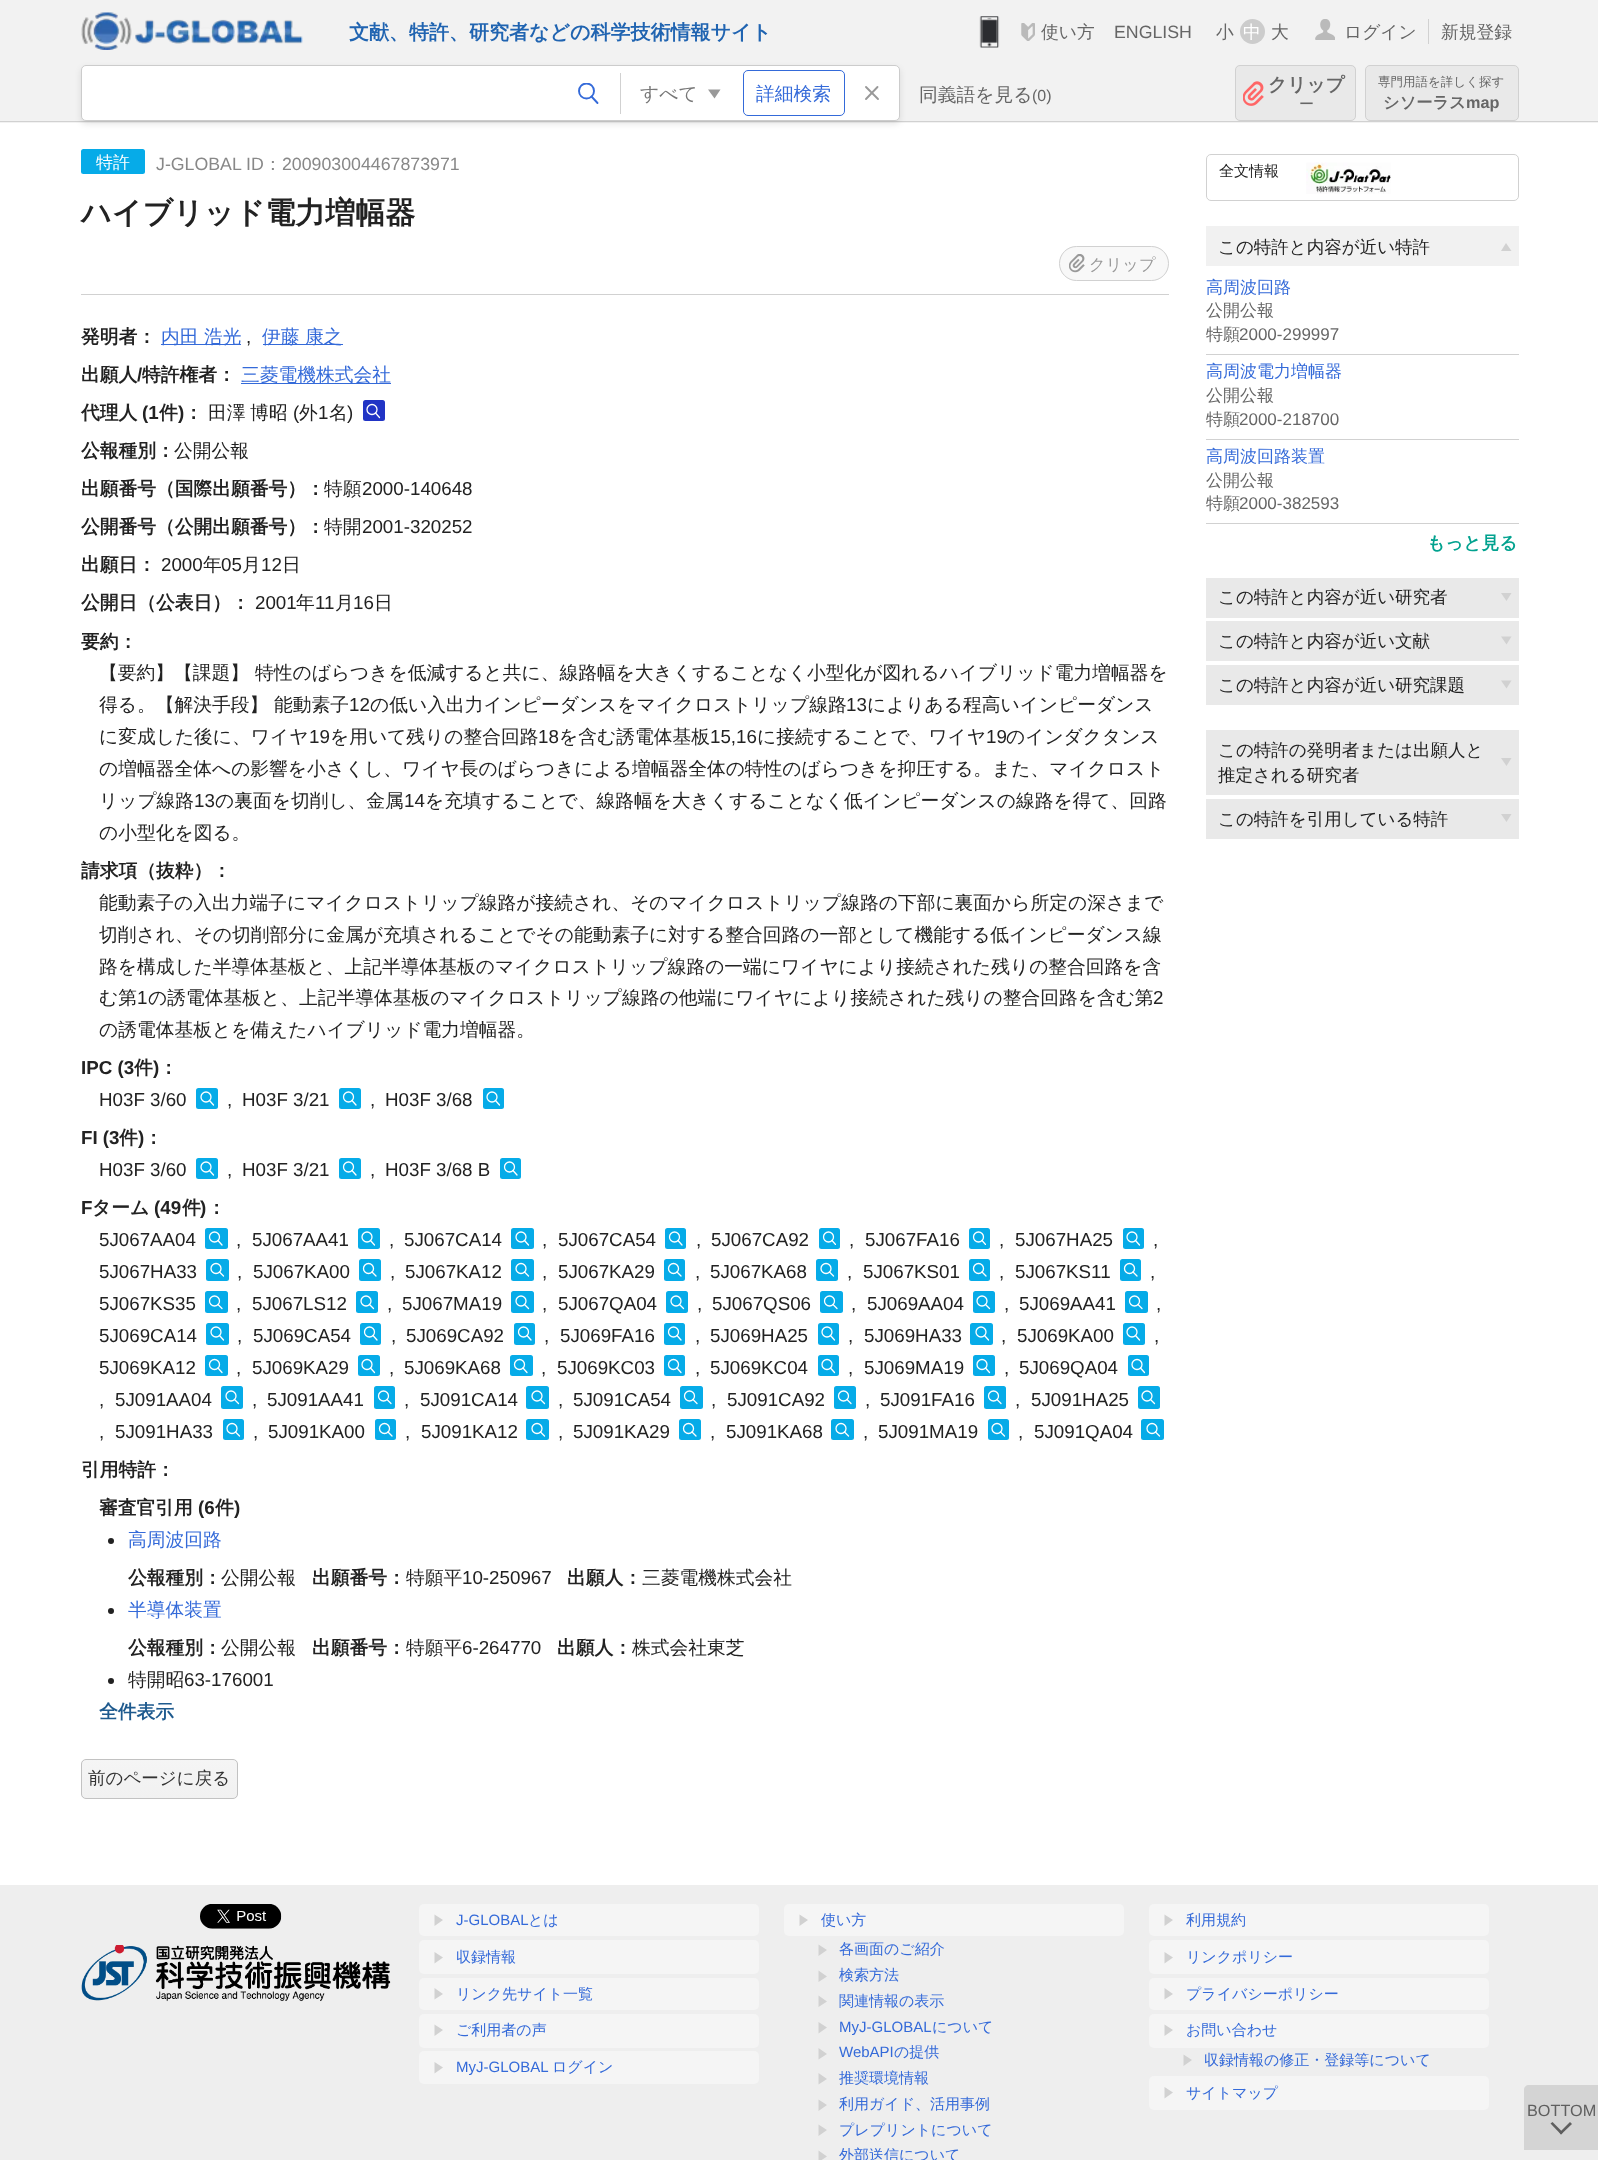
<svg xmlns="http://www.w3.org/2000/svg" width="1598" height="2160">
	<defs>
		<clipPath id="clip1"><rect x="578" y="83" width="21" height="21" /></clipPath>
		<clipPath id="clip2"><rect x="823" y="1231" width="13" height="14" /></clipPath>
		<clipPath id="clip3"><rect x="973" y="1231" width="13" height="14" /></clipPath>
		<clipPath id="clip4"><rect x="81" y="1759" width="157" height="40" rx="5" /></clipPath>
		<linearGradient id="g1" gradientUnits="userSpaceOnUse" x1="159" y1="1760" x2="159" y2="1798"><stop offset="0" stop-color="#F5F5F5" /><stop offset="1" stop-color="#F1F1F1" /></linearGradient>
	</defs>
	<rect width="100%" height="100%" fill="#FFFFFF" />
	<rect x="0" y="0" width="1598" height="123" fill="#F2F2F2" />
	<image x="81" y="12" width="222" height="38" href="assets/img1.png" />
	<text x="349" y="39" font-family="WenQuanYi Zen Hei" font-size="20" font-weight="700" fill="#2064B1">文献、特許、研究者などの科学技術情報サイト</text>
	<image x="979" y="16" width="21" height="32" href="assets/img2.png" />
	<image x="1021" y="23" width="14" height="18" href="assets/img3.png" />
	<text x="1041" y="38" font-family="WenQuanYi Zen Hei" font-size="17.75" font-weight="500" fill="#666666">使い方</text>
	<text x="1114" y="38" font-family="Liberation Sans" font-size="17.75" fill="#666666">ENGLISH</text>
	<text x="1216" y="38" font-family="WenQuanYi Zen Hei" font-size="17.75" font-weight="500" fill="#666666">小</text>
	<circle cx="1252.5" cy="31.5" r="12.5" fill="#CCCCCC" />
	<text x="1243" y="38" font-family="WenQuanYi Zen Hei" font-size="17.75" font-weight="500" fill="#FFFFFF">中</text>
	<text x="1271" y="38" font-family="WenQuanYi Zen Hei" font-size="17.75" font-weight="500" fill="#666666">大</text>
	<image x="1315" y="19" width="20" height="21" href="assets/img4.png" />
	<rect x="1428" y="19" width="1" height="25" fill="#D1D1D1" />
	<g font-family="WenQuanYi Zen Hei" font-size="17.75" font-weight="500" fill="#666666">
		<text x="1344" y="38">ログイン</text>
		<text x="1441" y="38">新規登録</text>
	</g>
	<rect x="0" y="121" width="1598" height="1" fill="#D1D1D1" />
	<rect x="81" y="68" width="819" height="56" rx="5" fill="#000000" fill-opacity="0.1" filter="blur(3px)" />
	<rect x="81.5" y="65.5" width="818" height="55" rx="4.5" fill="#FFFFFF" stroke="#CCCCCC" />
	<g clip-path="url(#clip1)">
		<circle cx="586.5" cy="91" r="7.5" fill="none" stroke="#346AD9" stroke-width="1.9" />
	</g>
	<path d="M591.5 96.5L597.5 103" fill="none" stroke="#346AD9" stroke-width="1.9" stroke-linecap="round" stroke-linejoin="round" />
	<path d="M720.5 89.5L714.5 98.5L708 89.5Z" fill="#999999" />
	<rect x="620" y="73" width="1" height="41" fill="#D1D1D1" />
	<text x="640" y="100" font-family="WenQuanYi Zen Hei" font-size="18.75" font-weight="500" fill="#777777">すべて</text>
	<rect x="743.5" y="70.5" width="101" height="45" rx="4.5" fill="none" stroke="#346AD9" />
	<text x="756" y="100" font-family="WenQuanYi Zen Hei" font-size="18.75" font-weight="500" fill="#346AD9">詳細検索</text>
	<path d="M866 99L877.5 87M866 87L878 99" fill="none" stroke="#999999" stroke-width="1.9" stroke-linecap="round" stroke-linejoin="round" />
	<text x="919" y="101" font-family="WenQuanYi Zen Hei" font-size="18.75" font-weight="500" fill="#666666">同義語を見る</text>
	<text x="1032" y="101" font-family="Liberation Sans" font-size="16" fill="#666666">(0)</text>
	<rect x="1235" y="65" width="121" height="56" rx="5" fill="#E9E9E9" />
	<image x="1243" y="81" width="21" height="25" href="assets/img5.png" />
	<rect x="1235.5" y="65.5" width="120" height="55" rx="4.5" fill="none" stroke="#D1D1D1" />
	<text x="1268" y="91" font-family="WenQuanYi Zen Hei" font-size="18.75" font-weight="700" fill="#666666">クリップ</text>
	<text x="1299" y="109" font-family="WenQuanYi Zen Hei" font-size="15" font-weight="500" fill="#666666">ー</text>
	<rect x="1365.5" y="65.5" width="153" height="55" rx="4.5" fill="#E9E9E9" stroke="#D1D1D1" />
	<text x="1378" y="86" font-family="WenQuanYi Zen Hei" font-size="12.5" font-weight="500" fill="#666666">専門用語を詳しく探す</text>
	<text x="1383" y="108" font-family="WenQuanYi Zen Hei" font-size="16.25" font-weight="700" fill="#666666">シソーラス</text>
	<text x="1466" y="108" font-family="Liberation Sans" font-size="16.25" font-weight="700" fill="#666666">map</text>
	<rect x="81" y="294" width="1088" height="1" fill="#D1D1D1" />
	<rect x="81" y="149" width="64" height="25" rx="2.5" fill="#06ABE8" />
	<text x="96" y="168" font-family="WenQuanYi Zen Hei" font-size="17" font-weight="500" fill="#FFFFFF">特許</text>
	<text x="156" y="170" font-family="Liberation Sans" font-size="17.75" fill="#888888">J-GLOBAL ID</text>
	<text x="264" y="170" font-family="WenQuanYi Zen Hei" font-size="17.75" font-weight="500" fill="#888888">：</text>
	<text x="282" y="170" font-family="Liberation Sans" font-size="17.75" fill="#888888">200903004467873971</text>
	<text x="81" y="223" font-family="WenQuanYi Zen Hei" font-size="30" font-weight="700" fill="#222222">ハイブリッド電力増幅器</text>
	<rect x="1059" y="246" width="110" height="35" rx="17.5" fill="#F8F8F8" />
	<image x="1069" y="254" width="16" height="19" href="assets/img6.png" />
	<rect x="1059.5" y="246.5" width="109" height="34" rx="17" fill="none" stroke="#D1D1D1" />
	<text x="1089" y="270" font-family="WenQuanYi Zen Hei" font-size="16.25" font-weight="500" fill="#999999">クリップ</text>
	<text x="81" y="343" font-family="WenQuanYi Zen Hei" font-size="18.75" font-weight="700" fill="#222222">発明者：</text>
	<rect x="161" y="344" width="80" height="1" fill="#346AD9" />
	<g font-family="WenQuanYi Zen Hei" font-size="18.75" font-weight="500" fill="#346AD9">
		<text x="161" y="343">内田</text>
		<text x="204" y="343">浩光</text>
	</g>
	<text x="246" y="343" font-family="Liberation Sans" font-size="18.75" fill="#222222">,</text>
	<rect x="263" y="344" width="80" height="1" fill="#346AD9" />
	<g font-family="WenQuanYi Zen Hei" font-size="18.75" font-weight="500" fill="#346AD9">
		<text x="262" y="343">伊藤</text>
		<text x="305" y="343">康之</text>
	</g>
	<text x="81" y="381" font-family="WenQuanYi Zen Hei" font-size="18.75" font-weight="700" fill="#222222">出願人</text>
	<text x="137" y="381" font-family="Liberation Sans" font-size="18.75" font-weight="700" fill="#222222">/</text>
	<text x="142" y="381" font-family="WenQuanYi Zen Hei" font-size="18.75" font-weight="700" fill="#222222">特許権者：</text>
	<rect x="241" y="383" width="150" height="1" fill="#346AD9" />
	<text x="241" y="381" font-family="WenQuanYi Zen Hei" font-size="18.75" font-weight="500" fill="#346AD9">三菱電機株式会社</text>
	<text x="81" y="419" font-family="WenQuanYi Zen Hei" font-size="18.75" font-weight="700" fill="#222222">代理人</text>
	<text x="142" y="419" font-family="Liberation Sans" font-size="18.75" font-weight="700" fill="#222222">(1</text>
	<text x="159" y="419" font-family="WenQuanYi Zen Hei" font-size="18.75" font-weight="700" fill="#222222">件</text>
	<text x="178" y="419" font-family="Liberation Sans" font-size="18.75" font-weight="700" fill="#222222">)</text>
	<text x="184" y="419" font-family="WenQuanYi Zen Hei" font-size="18.75" font-weight="700" fill="#222222">：</text>
	<g font-family="WenQuanYi Zen Hei" font-size="18.75" font-weight="500" fill="#222222">
		<text x="208" y="419">田澤</text>
		<text x="250" y="419">博昭</text>
	</g>
	<text x="293" y="419" font-family="Liberation Sans" font-size="18.75" fill="#222222">(</text>
	<text x="299" y="419" font-family="WenQuanYi Zen Hei" font-size="18.75" font-weight="500" fill="#222222">外</text>
	<text x="318" y="419" font-family="Liberation Sans" font-size="18.75" fill="#222222">1</text>
	<text x="329" y="419" font-family="WenQuanYi Zen Hei" font-size="18.75" font-weight="500" fill="#222222">名</text>
	<text x="347" y="419" font-family="Liberation Sans" font-size="18.75" fill="#222222">)</text>
	<rect x="363" y="400" width="22" height="21" rx="2.5" fill="#2134C5" />
	<circle cx="372" cy="409.5" r="5" fill="none" stroke="#FFFFFF" stroke-width="1.3" />
	<path d="M375.5 413L379.5 417.5" fill="none" stroke="#FFFFFF" stroke-width="1.3" stroke-linecap="round" stroke-linejoin="round" />
	<text x="81" y="457" font-family="WenQuanYi Zen Hei" font-size="18.75" font-weight="700" fill="#222222">公報種別：</text>
	<text x="174" y="457" font-family="WenQuanYi Zen Hei" font-size="18.75" font-weight="500" fill="#222222">公開公報</text>
	<text x="81" y="495" font-family="WenQuanYi Zen Hei" font-size="18.75" font-weight="700" fill="#222222">出願番号（国際出願番号）：</text>
	<text x="324" y="495" font-family="WenQuanYi Zen Hei" font-size="18.75" font-weight="500" fill="#222222">特願</text>
	<text x="362" y="495" font-family="Liberation Sans" font-size="18.75" fill="#222222">2000-140648</text>
	<text x="81" y="533" font-family="WenQuanYi Zen Hei" font-size="18.75" font-weight="700" fill="#222222">公開番号（公開出願番号）：</text>
	<text x="324" y="533" font-family="WenQuanYi Zen Hei" font-size="18.75" font-weight="500" fill="#222222">特開</text>
	<text x="362" y="533" font-family="Liberation Sans" font-size="18.75" fill="#222222">2001-320252</text>
	<text x="81" y="571" font-family="WenQuanYi Zen Hei" font-size="18.75" font-weight="700" fill="#222222">出願日：</text>
	<text x="161" y="571" font-family="Liberation Sans" font-size="18.75" fill="#222222">2000</text>
	<text x="203" y="571" font-family="WenQuanYi Zen Hei" font-size="18.75" font-weight="500" fill="#222222">年</text>
	<text x="221" y="571" font-family="Liberation Sans" font-size="18.75" fill="#222222">05</text>
	<text x="242" y="571" font-family="WenQuanYi Zen Hei" font-size="18.75" font-weight="500" fill="#222222">月</text>
	<text x="261" y="571" font-family="Liberation Sans" font-size="18.75" fill="#222222">12</text>
	<text x="282" y="571" font-family="WenQuanYi Zen Hei" font-size="18.75" font-weight="500" fill="#222222">日</text>
	<text x="81" y="609" font-family="WenQuanYi Zen Hei" font-size="18.75" font-weight="700" fill="#222222">公開日（公表日）：</text>
	<text x="255" y="609" font-family="Liberation Sans" font-size="18.75" fill="#222222">2001</text>
	<text x="296" y="609" font-family="WenQuanYi Zen Hei" font-size="18.75" font-weight="500" fill="#222222">年</text>
	<text x="315" y="609" font-family="Liberation Sans" font-size="18.75" fill="#222222">11</text>
	<text x="335" y="609" font-family="WenQuanYi Zen Hei" font-size="18.75" font-weight="500" fill="#222222">月</text>
	<text x="353" y="609" font-family="Liberation Sans" font-size="18.75" fill="#222222">16</text>
	<text x="374" y="609" font-family="WenQuanYi Zen Hei" font-size="18.75" font-weight="500" fill="#222222">日</text>
	<text x="81" y="648" font-family="WenQuanYi Zen Hei" font-size="18.75" font-weight="700" fill="#222222">要約：</text>
	<g font-family="WenQuanYi Zen Hei" font-size="18.75" font-weight="500" fill="#222222">
		<text x="99" y="679">【要約】【課題】</text>
		<text x="255" y="679">特性のばらつきを低減すると共に、線路幅を大きくすることなく小型化が図れるハイブリッド電力増幅器を</text>
		<text x="99" y="711">得る。【解決手段】</text>
		<text x="274" y="711">能動素子</text>
	</g>
	<text x="349" y="711" font-family="Liberation Sans" font-size="18.75" fill="#222222">12</text>
	<text x="370" y="711" font-family="WenQuanYi Zen Hei" font-size="18.75" font-weight="500" fill="#222222">の低い入出力インピーダンスをマイクロストリップ線路</text>
	<text x="846" y="711" font-family="Liberation Sans" font-size="18.75" fill="#222222">13</text>
	<g font-family="WenQuanYi Zen Hei" font-size="18.75" font-weight="500" fill="#222222">
		<text x="867" y="711">によりある程高いインピーダンス</text>
		<text x="99" y="743">に変成した後に、ワイヤ</text>
	</g>
	<text x="309" y="743" font-family="Liberation Sans" font-size="18.75" fill="#222222">19</text>
	<text x="330" y="743" font-family="WenQuanYi Zen Hei" font-size="18.75" font-weight="500" fill="#222222">を用いて残りの整合回路</text>
	<text x="538" y="743" font-family="Liberation Sans" font-size="18.75" fill="#222222">18</text>
	<text x="559" y="743" font-family="WenQuanYi Zen Hei" font-size="18.75" font-weight="500" fill="#222222">を含む誘電体基板</text>
	<text x="710" y="743" font-family="Liberation Sans" font-size="18.75" fill="#222222">15,16</text>
	<text x="757" y="743" font-family="WenQuanYi Zen Hei" font-size="18.75" font-weight="500" fill="#222222">に接続することで、ワイヤ</text>
	<text x="986" y="743" font-family="Liberation Sans" font-size="18.75" fill="#222222">19</text>
	<g font-family="WenQuanYi Zen Hei" font-size="18.75" font-weight="500" fill="#222222">
		<text x="1006" y="743">のインダクタンス</text>
		<text x="99" y="775">の増幅器全体への影響を小さくし、ワイヤ長のばらつきによる増幅器全体の特性のばらつきを抑圧する。また、マイクロスト</text>
		<text x="99" y="807">リップ線路</text>
	</g>
	<text x="194" y="807" font-family="Liberation Sans" font-size="18.75" fill="#222222">13</text>
	<text x="215" y="807" font-family="WenQuanYi Zen Hei" font-size="18.75" font-weight="500" fill="#222222">の裏面を切削し、金属</text>
	<text x="404" y="807" font-family="Liberation Sans" font-size="18.75" fill="#222222">14</text>
	<g font-family="WenQuanYi Zen Hei" font-size="18.75" font-weight="500" fill="#222222">
		<text x="425" y="807">を充填することで、線路幅を大きくすることなく低インピーダンスの線路を得て、回路</text>
		<text x="99" y="839">の小型化を図る。</text>
	</g>
	<text x="81" y="877" font-family="WenQuanYi Zen Hei" font-size="18.75" font-weight="700" fill="#222222">請求項（抜粋）：</text>
	<g font-family="WenQuanYi Zen Hei" font-size="18.75" font-weight="500" fill="#222222">
		<text x="99" y="909">能動素子の入出力端子にマイクロストリップ線路が接続され、そのマイクロストリップ線路の下部に裏面から所定の深さまで</text>
		<text x="99" y="941">切削され、その切削部分に金属が充填されることでその能動素子に対する整合回路の一部として機能する低インピーダンス線</text>
		<text x="99" y="973">路を構成した半導体基板と、上記半導体基板のマイクロストリップ線路の一端にワイヤにより接続された残りの整合回路を含</text>
		<text x="99" y="1004">む第</text>
	</g>
	<text x="137" y="1004" font-family="Liberation Sans" font-size="18.75" fill="#222222">1</text>
	<text x="148" y="1004" font-family="WenQuanYi Zen Hei" font-size="18.75" font-weight="500" fill="#222222">の誘電体基板と、上記半導体基板のマイクロストリップ線路の他端にワイヤにより接続された残りの整合回路を含む第</text>
	<text x="1153" y="1004" font-family="Liberation Sans" font-size="18.75" fill="#222222">2</text>
	<text x="99" y="1036" font-family="WenQuanYi Zen Hei" font-size="18.75" font-weight="500" fill="#222222">の誘電体基板とを備えたハイブリッド電力増幅器。</text>
	<text x="81" y="1074" font-family="Liberation Sans" font-size="18.75" font-weight="700" fill="#222222">IPC (3</text>
	<text x="134" y="1074" font-family="WenQuanYi Zen Hei" font-size="18.75" font-weight="700" fill="#222222">件</text>
	<text x="153" y="1074" font-family="Liberation Sans" font-size="18.75" font-weight="700" fill="#222222">)</text>
	<text x="159" y="1074" font-family="WenQuanYi Zen Hei" font-size="18.75" font-weight="700" fill="#222222">：</text>
	<text x="99" y="1106" font-family="Liberation Sans" font-size="18.75" fill="#222222">H03F 3/60</text>
	<rect x="196" y="1088" width="22" height="21" rx="2.5" fill="#06ABE8" />
	<circle cx="206" cy="1097" r="5" fill="none" stroke="#FFFFFF" stroke-width="1.3" />
	<path d="M209.5 1100.5L213.5 1105" fill="none" stroke="#FFFFFF" stroke-width="1.3" stroke-linecap="round" stroke-linejoin="round" />
	<g font-family="Liberation Sans" font-size="18.75" fill="#222222">
		<text x="227" y="1106">,</text>
		<text x="242" y="1106">H03F 3/21</text>
	</g>
	<rect x="339" y="1088" width="22" height="21" rx="2.5" fill="#06ABE8" />
	<circle cx="348.5" cy="1097" r="5" fill="none" stroke="#FFFFFF" stroke-width="1.3" />
	<path d="M352 1100.5L356 1105" fill="none" stroke="#FFFFFF" stroke-width="1.3" stroke-linecap="round" stroke-linejoin="round" />
	<g font-family="Liberation Sans" font-size="18.75" fill="#222222">
		<text x="370" y="1106">,</text>
		<text x="385" y="1106">H03F 3/68</text>
	</g>
	<rect x="483" y="1088" width="21" height="21" rx="2.5" fill="#06ABE8" />
	<circle cx="492" cy="1097" r="5" fill="none" stroke="#FFFFFF" stroke-width="1.3" />
	<path d="M495.5 1100.5L499.5 1105" fill="none" stroke="#FFFFFF" stroke-width="1.3" stroke-linecap="round" stroke-linejoin="round" />
	<text x="81" y="1144" font-family="Liberation Sans" font-size="18.75" font-weight="700" fill="#222222">FI (3</text>
	<text x="119" y="1144" font-family="WenQuanYi Zen Hei" font-size="18.75" font-weight="700" fill="#222222">件</text>
	<text x="138" y="1144" font-family="Liberation Sans" font-size="18.75" font-weight="700" fill="#222222">)</text>
	<text x="144" y="1144" font-family="WenQuanYi Zen Hei" font-size="18.75" font-weight="700" fill="#222222">：</text>
	<text x="99" y="1176" font-family="Liberation Sans" font-size="18.75" fill="#222222">H03F 3/60</text>
	<rect x="196" y="1158" width="22" height="21" rx="2.5" fill="#06ABE8" />
	<circle cx="206" cy="1167" r="5" fill="none" stroke="#FFFFFF" stroke-width="1.3" />
	<path d="M209.5 1170.5L213.5 1175" fill="none" stroke="#FFFFFF" stroke-width="1.3" stroke-linecap="round" stroke-linejoin="round" />
	<g font-family="Liberation Sans" font-size="18.75" fill="#222222">
		<text x="227" y="1176">,</text>
		<text x="242" y="1176">H03F 3/21</text>
	</g>
	<rect x="339" y="1158" width="22" height="21" rx="2.5" fill="#06ABE8" />
	<circle cx="348.5" cy="1167" r="5" fill="none" stroke="#FFFFFF" stroke-width="1.3" />
	<path d="M352 1170.5L356 1175" fill="none" stroke="#FFFFFF" stroke-width="1.3" stroke-linecap="round" stroke-linejoin="round" />
	<g font-family="Liberation Sans" font-size="18.75" fill="#222222">
		<text x="370" y="1176">,</text>
		<text x="385" y="1176">H03F 3/68 B</text>
	</g>
	<rect x="500" y="1158" width="21" height="21" rx="2.5" fill="#06ABE8" />
	<circle cx="509.5" cy="1167" r="5" fill="none" stroke="#FFFFFF" stroke-width="1.3" />
	<path d="M513 1170.5L517 1175" fill="none" stroke="#FFFFFF" stroke-width="1.3" stroke-linecap="round" stroke-linejoin="round" />
	<text x="81" y="1214" font-family="Liberation Sans" font-size="18.75" font-weight="700" fill="#222222">F</text>
	<text x="92" y="1214" font-family="WenQuanYi Zen Hei" font-size="18.75" font-weight="700" fill="#222222">ターム</text>
	<text x="154" y="1214" font-family="Liberation Sans" font-size="18.75" font-weight="700" fill="#222222">(49</text>
	<text x="182" y="1214" font-family="WenQuanYi Zen Hei" font-size="18.75" font-weight="700" fill="#222222">件</text>
	<text x="200" y="1214" font-family="Liberation Sans" font-size="18.75" font-weight="700" fill="#222222">)</text>
	<text x="207" y="1214" font-family="WenQuanYi Zen Hei" font-size="18.75" font-weight="700" fill="#222222">：</text>
	<text x="99" y="1246" font-family="Liberation Sans" font-size="18.75" fill="#222222">5J067AA04</text>
	<rect x="205" y="1228" width="23" height="21" rx="2.5" fill="#06ABE8" />
	<circle cx="214.5" cy="1237" r="5" fill="none" stroke="#FFFFFF" stroke-width="1.3" />
	<path d="M218 1240.5L222 1245" fill="none" stroke="#FFFFFF" stroke-width="1.3" stroke-linecap="round" stroke-linejoin="round" />
	<g font-family="Liberation Sans" font-size="18.75" fill="#222222">
		<text x="236" y="1246">,</text>
		<text x="252" y="1246">5J067AA41</text>
	</g>
	<rect x="358" y="1228" width="22" height="21" rx="2.5" fill="#06ABE8" />
	<circle cx="367" cy="1237" r="5" fill="none" stroke="#FFFFFF" stroke-width="1.3" />
	<path d="M370.5 1240.5L374.5 1245" fill="none" stroke="#FFFFFF" stroke-width="1.3" stroke-linecap="round" stroke-linejoin="round" />
	<g font-family="Liberation Sans" font-size="18.75" fill="#222222">
		<text x="389" y="1246">,</text>
		<text x="404" y="1246">5J067CA14</text>
	</g>
	<rect x="511" y="1228" width="23" height="21" rx="2.5" fill="#06ABE8" />
	<circle cx="521" cy="1237" r="5" fill="none" stroke="#FFFFFF" stroke-width="1.3" />
	<path d="M524.5 1240.5L528.5 1245" fill="none" stroke="#FFFFFF" stroke-width="1.3" stroke-linecap="round" stroke-linejoin="round" />
	<g font-family="Liberation Sans" font-size="18.75" fill="#222222">
		<text x="542" y="1246">,</text>
		<text x="558" y="1246">5J067CA54</text>
	</g>
	<rect x="665" y="1228" width="21" height="21" rx="2.5" fill="#06ABE8" />
	<circle cx="674.5" cy="1237" r="5" fill="none" stroke="#FFFFFF" stroke-width="1.3" />
	<path d="M678 1240.5L682 1245" fill="none" stroke="#FFFFFF" stroke-width="1.3" stroke-linecap="round" stroke-linejoin="round" />
	<g font-family="Liberation Sans" font-size="18.75" fill="#222222">
		<text x="696" y="1246">,</text>
		<text x="711" y="1246">5J067CA92</text>
	</g>
	<rect x="819" y="1228" width="21" height="21" rx="2.5" fill="#06ABE8" />
	<circle cx="828.5" cy="1237" r="5" fill="none" stroke="#FFFFFF" stroke-width="1.3" />
	<g clip-path="url(#clip2)">
		<path d="M832 1240.5L836 1245" fill="none" stroke="#FFFFFF" stroke-width="1.3" stroke-linecap="round" stroke-linejoin="round" />
	</g>
	<g font-family="Liberation Sans" font-size="18.75" fill="#222222">
		<text x="849" y="1246">,</text>
		<text x="865" y="1246">5J067FA16</text>
	</g>
	<rect x="969" y="1228" width="21" height="21" rx="2.5" fill="#06ABE8" />
	<circle cx="978.5" cy="1237" r="5" fill="none" stroke="#FFFFFF" stroke-width="1.3" />
	<g clip-path="url(#clip3)">
		<path d="M982 1240.5L986 1245" fill="none" stroke="#FFFFFF" stroke-width="1.3" stroke-linecap="round" stroke-linejoin="round" />
	</g>
	<g font-family="Liberation Sans" font-size="18.75" fill="#222222">
		<text x="999" y="1246">,</text>
		<text x="1015" y="1246">5J067HA25</text>
	</g>
	<rect x="1123" y="1228" width="21" height="21" rx="2.5" fill="#06ABE8" />
	<circle cx="1132" cy="1237" r="5" fill="none" stroke="#FFFFFF" stroke-width="1.3" />
	<path d="M1135.5 1240.5L1139.5 1245" fill="none" stroke="#FFFFFF" stroke-width="1.3" stroke-linecap="round" stroke-linejoin="round" />
	<g font-family="Liberation Sans" font-size="18.75" fill="#222222">
		<text x="1153" y="1246">,</text>
		<text x="99" y="1278">5J067HA33</text>
	</g>
	<rect x="206" y="1259" width="23" height="22" rx="2.5" fill="#06ABE8" />
	<circle cx="216" cy="1268.5" r="5" fill="none" stroke="#FFFFFF" stroke-width="1.3" />
	<path d="M219.5 1272L223.5 1276" fill="none" stroke="#FFFFFF" stroke-width="1.3" stroke-linecap="round" stroke-linejoin="round" />
	<g font-family="Liberation Sans" font-size="18.75" fill="#222222">
		<text x="237" y="1278">,</text>
		<text x="253" y="1278">5J067KA00</text>
	</g>
	<rect x="359" y="1259" width="22" height="22" rx="2.5" fill="#06ABE8" />
	<circle cx="368.5" cy="1268.5" r="5" fill="none" stroke="#FFFFFF" stroke-width="1.3" />
	<path d="M372 1272L376 1276" fill="none" stroke="#FFFFFF" stroke-width="1.3" stroke-linecap="round" stroke-linejoin="round" />
	<g font-family="Liberation Sans" font-size="18.75" fill="#222222">
		<text x="390" y="1278">,</text>
		<text x="405" y="1278">5J067KA12</text>
	</g>
	<rect x="511" y="1259" width="23" height="22" rx="2.5" fill="#06ABE8" />
	<circle cx="521" cy="1268.5" r="5" fill="none" stroke="#FFFFFF" stroke-width="1.3" />
	<path d="M524.5 1272L528.5 1276" fill="none" stroke="#FFFFFF" stroke-width="1.3" stroke-linecap="round" stroke-linejoin="round" />
	<g font-family="Liberation Sans" font-size="18.75" fill="#222222">
		<text x="542" y="1278">,</text>
		<text x="558" y="1278">5J067KA29</text>
	</g>
	<rect x="664" y="1259" width="21" height="22" rx="2.5" fill="#06ABE8" />
	<circle cx="673.5" cy="1268.5" r="5" fill="none" stroke="#FFFFFF" stroke-width="1.3" />
	<path d="M677 1272L681 1276" fill="none" stroke="#FFFFFF" stroke-width="1.3" stroke-linecap="round" stroke-linejoin="round" />
	<g font-family="Liberation Sans" font-size="18.75" fill="#222222">
		<text x="695" y="1278">,</text>
		<text x="710" y="1278">5J067KA68</text>
	</g>
	<rect x="816" y="1259" width="22" height="22" rx="2.5" fill="#06ABE8" />
	<circle cx="826" cy="1268.5" r="5" fill="none" stroke="#FFFFFF" stroke-width="1.3" />
	<path d="M829.5 1272L833.5 1276" fill="none" stroke="#FFFFFF" stroke-width="1.3" stroke-linecap="round" stroke-linejoin="round" />
	<g font-family="Liberation Sans" font-size="18.75" fill="#222222">
		<text x="847" y="1278">,</text>
		<text x="863" y="1278">5J067KS01</text>
	</g>
	<rect x="969" y="1259" width="21" height="22" rx="2.5" fill="#06ABE8" />
	<circle cx="978.5" cy="1268.5" r="5" fill="none" stroke="#FFFFFF" stroke-width="1.3" />
	<path d="M982 1272L986 1276" fill="none" stroke="#FFFFFF" stroke-width="1.3" stroke-linecap="round" stroke-linejoin="round" />
	<g font-family="Liberation Sans" font-size="18.75" fill="#222222">
		<text x="999" y="1278">,</text>
		<text x="1015" y="1278">5J067KS11</text>
	</g>
	<rect x="1120" y="1259" width="21" height="22" rx="2.5" fill="#06ABE8" />
	<circle cx="1129.5" cy="1268.5" r="5" fill="none" stroke="#FFFFFF" stroke-width="1.3" />
	<path d="M1133 1272L1137 1276" fill="none" stroke="#FFFFFF" stroke-width="1.3" stroke-linecap="round" stroke-linejoin="round" />
	<g font-family="Liberation Sans" font-size="18.75" fill="#222222">
		<text x="1150" y="1278">,</text>
		<text x="99" y="1310">5J067KS35</text>
	</g>
	<rect x="205" y="1291" width="23" height="22" rx="2.5" fill="#06ABE8" />
	<circle cx="214.5" cy="1301" r="5" fill="none" stroke="#FFFFFF" stroke-width="1.3" />
	<path d="M218 1304.5L222 1308.5" fill="none" stroke="#FFFFFF" stroke-width="1.3" stroke-linecap="round" stroke-linejoin="round" />
	<g font-family="Liberation Sans" font-size="18.75" fill="#222222">
		<text x="236" y="1310">,</text>
		<text x="252" y="1310">5J067LS12</text>
	</g>
	<rect x="356" y="1291" width="22" height="22" rx="2.5" fill="#06ABE8" />
	<circle cx="366" cy="1301" r="5" fill="none" stroke="#FFFFFF" stroke-width="1.3" />
	<path d="M369.5 1304.5L373.5 1308.5" fill="none" stroke="#FFFFFF" stroke-width="1.3" stroke-linecap="round" stroke-linejoin="round" />
	<g font-family="Liberation Sans" font-size="18.75" fill="#222222">
		<text x="387" y="1310">,</text>
		<text x="402" y="1310">5J067MA19</text>
	</g>
	<rect x="511" y="1291" width="23" height="22" rx="2.5" fill="#06ABE8" />
	<circle cx="521" cy="1301" r="5" fill="none" stroke="#FFFFFF" stroke-width="1.3" />
	<path d="M524.5 1304.5L528.5 1308.5" fill="none" stroke="#FFFFFF" stroke-width="1.3" stroke-linecap="round" stroke-linejoin="round" />
	<g font-family="Liberation Sans" font-size="18.75" fill="#222222">
		<text x="542" y="1310">,</text>
		<text x="558" y="1310">5J067QA04</text>
	</g>
	<rect x="666" y="1291" width="22" height="22" rx="2.5" fill="#06ABE8" />
	<circle cx="676" cy="1301" r="5" fill="none" stroke="#FFFFFF" stroke-width="1.3" />
	<path d="M679.5 1304.5L683.5 1308.5" fill="none" stroke="#FFFFFF" stroke-width="1.3" stroke-linecap="round" stroke-linejoin="round" />
	<g font-family="Liberation Sans" font-size="18.75" fill="#222222">
		<text x="697" y="1310">,</text>
		<text x="712" y="1310">5J067QS06</text>
	</g>
	<rect x="820" y="1291" width="23" height="22" rx="2.5" fill="#06ABE8" />
	<circle cx="829.5" cy="1301" r="5" fill="none" stroke="#FFFFFF" stroke-width="1.3" />
	<path d="M833 1304.5L837 1308.5" fill="none" stroke="#FFFFFF" stroke-width="1.3" stroke-linecap="round" stroke-linejoin="round" />
	<g font-family="Liberation Sans" font-size="18.75" fill="#222222">
		<text x="851" y="1310">,</text>
		<text x="867" y="1310">5J069AA04</text>
	</g>
	<rect x="973" y="1291" width="22" height="22" rx="2.5" fill="#06ABE8" />
	<circle cx="982" cy="1301" r="5" fill="none" stroke="#FFFFFF" stroke-width="1.3" />
	<path d="M985.5 1304.5L989.5 1308.5" fill="none" stroke="#FFFFFF" stroke-width="1.3" stroke-linecap="round" stroke-linejoin="round" />
	<g font-family="Liberation Sans" font-size="18.75" fill="#222222">
		<text x="1004" y="1310">,</text>
		<text x="1019" y="1310">5J069AA41</text>
	</g>
	<rect x="1125" y="1291" width="23" height="22" rx="2.5" fill="#06ABE8" />
	<circle cx="1134.5" cy="1301" r="5" fill="none" stroke="#FFFFFF" stroke-width="1.3" />
	<path d="M1138 1304.5L1142 1308.5" fill="none" stroke="#FFFFFF" stroke-width="1.3" stroke-linecap="round" stroke-linejoin="round" />
	<g font-family="Liberation Sans" font-size="18.75" fill="#222222">
		<text x="1156" y="1310">,</text>
		<text x="99" y="1342">5J069CA14</text>
	</g>
	<rect x="206" y="1323" width="23" height="22" rx="2.5" fill="#06ABE8" />
	<circle cx="216" cy="1332" r="5" fill="none" stroke="#FFFFFF" stroke-width="1.3" />
	<path d="M219.5 1335.5L223.5 1340" fill="none" stroke="#FFFFFF" stroke-width="1.3" stroke-linecap="round" stroke-linejoin="round" />
	<g font-family="Liberation Sans" font-size="18.75" fill="#222222">
		<text x="237" y="1342">,</text>
		<text x="253" y="1342">5J069CA54</text>
	</g>
	<rect x="360" y="1323" width="21" height="22" rx="2.5" fill="#06ABE8" />
	<circle cx="369.5" cy="1332" r="5" fill="none" stroke="#FFFFFF" stroke-width="1.3" />
	<path d="M373 1335.5L377 1340" fill="none" stroke="#FFFFFF" stroke-width="1.3" stroke-linecap="round" stroke-linejoin="round" />
	<g font-family="Liberation Sans" font-size="18.75" fill="#222222">
		<text x="391" y="1342">,</text>
		<text x="406" y="1342">5J069CA92</text>
	</g>
	<rect x="514" y="1323" width="21" height="22" rx="2.5" fill="#06ABE8" />
	<circle cx="523.5" cy="1332" r="5" fill="none" stroke="#FFFFFF" stroke-width="1.3" />
	<path d="M527 1335.5L531 1340" fill="none" stroke="#FFFFFF" stroke-width="1.3" stroke-linecap="round" stroke-linejoin="round" />
	<g font-family="Liberation Sans" font-size="18.75" fill="#222222">
		<text x="544" y="1342">,</text>
		<text x="560" y="1342">5J069FA16</text>
	</g>
	<rect x="664" y="1323" width="21" height="22" rx="2.5" fill="#06ABE8" />
	<circle cx="673.5" cy="1332" r="5" fill="none" stroke="#FFFFFF" stroke-width="1.3" />
	<path d="M677 1335.5L681 1340" fill="none" stroke="#FFFFFF" stroke-width="1.3" stroke-linecap="round" stroke-linejoin="round" />
	<g font-family="Liberation Sans" font-size="18.75" fill="#222222">
		<text x="695" y="1342">,</text>
		<text x="710" y="1342">5J069HA25</text>
	</g>
	<rect x="818" y="1323" width="21" height="22" rx="2.5" fill="#06ABE8" />
	<circle cx="827" cy="1332" r="5" fill="none" stroke="#FFFFFF" stroke-width="1.3" />
	<path d="M830.5 1335.5L834.5 1340" fill="none" stroke="#FFFFFF" stroke-width="1.3" stroke-linecap="round" stroke-linejoin="round" />
	<g font-family="Liberation Sans" font-size="18.75" fill="#222222">
		<text x="848" y="1342">,</text>
		<text x="864" y="1342">5J069HA33</text>
	</g>
	<rect x="970" y="1323" width="23" height="22" rx="2.5" fill="#06ABE8" />
	<circle cx="981" cy="1332" r="5" fill="none" stroke="#FFFFFF" stroke-width="1.3" />
	<path d="M984.5 1335.5L988.5 1340" fill="none" stroke="#FFFFFF" stroke-width="1.3" stroke-linecap="round" stroke-linejoin="round" />
	<g font-family="Liberation Sans" font-size="18.75" fill="#222222">
		<text x="1001" y="1342">,</text>
		<text x="1017" y="1342">5J069KA00</text>
	</g>
	<rect x="1123" y="1323" width="22" height="22" rx="2.5" fill="#06ABE8" />
	<circle cx="1132" cy="1332" r="5" fill="none" stroke="#FFFFFF" stroke-width="1.3" />
	<path d="M1135.5 1335.5L1139.5 1340" fill="none" stroke="#FFFFFF" stroke-width="1.3" stroke-linecap="round" stroke-linejoin="round" />
	<g font-family="Liberation Sans" font-size="18.75" fill="#222222">
		<text x="1154" y="1342">,</text>
		<text x="99" y="1374">5J069KA12</text>
	</g>
	<rect x="205" y="1355" width="23" height="21" rx="2.5" fill="#06ABE8" />
	<circle cx="214.5" cy="1364.5" r="5" fill="none" stroke="#FFFFFF" stroke-width="1.3" />
	<path d="M218 1368L222 1372.5" fill="none" stroke="#FFFFFF" stroke-width="1.3" stroke-linecap="round" stroke-linejoin="round" />
	<g font-family="Liberation Sans" font-size="18.75" fill="#222222">
		<text x="236" y="1374">,</text>
		<text x="252" y="1374">5J069KA29</text>
	</g>
	<rect x="358" y="1355" width="22" height="21" rx="2.5" fill="#06ABE8" />
	<circle cx="367" cy="1364.5" r="5" fill="none" stroke="#FFFFFF" stroke-width="1.3" />
	<path d="M370.5 1368L374.5 1372.5" fill="none" stroke="#FFFFFF" stroke-width="1.3" stroke-linecap="round" stroke-linejoin="round" />
	<g font-family="Liberation Sans" font-size="18.75" fill="#222222">
		<text x="389" y="1374">,</text>
		<text x="404" y="1374">5J069KA68</text>
	</g>
	<rect x="510" y="1355" width="23" height="21" rx="2.5" fill="#06ABE8" />
	<circle cx="519.5" cy="1364.5" r="5" fill="none" stroke="#FFFFFF" stroke-width="1.3" />
	<path d="M523 1368L527 1372.5" fill="none" stroke="#FFFFFF" stroke-width="1.3" stroke-linecap="round" stroke-linejoin="round" />
	<g font-family="Liberation Sans" font-size="18.75" fill="#222222">
		<text x="541" y="1374">,</text>
		<text x="557" y="1374">5J069KC03</text>
	</g>
	<rect x="664" y="1355" width="21" height="21" rx="2.5" fill="#06ABE8" />
	<circle cx="673.5" cy="1364.5" r="5" fill="none" stroke="#FFFFFF" stroke-width="1.3" />
	<path d="M677 1368L681 1372.5" fill="none" stroke="#FFFFFF" stroke-width="1.3" stroke-linecap="round" stroke-linejoin="round" />
	<g font-family="Liberation Sans" font-size="18.75" fill="#222222">
		<text x="695" y="1374">,</text>
		<text x="710" y="1374">5J069KC04</text>
	</g>
	<rect x="818" y="1355" width="21" height="21" rx="2.5" fill="#06ABE8" />
	<circle cx="827" cy="1364.5" r="5" fill="none" stroke="#FFFFFF" stroke-width="1.3" />
	<path d="M830.5 1368L834.5 1372.5" fill="none" stroke="#FFFFFF" stroke-width="1.3" stroke-linecap="round" stroke-linejoin="round" />
	<g font-family="Liberation Sans" font-size="18.75" fill="#222222">
		<text x="848" y="1374">,</text>
		<text x="864" y="1374">5J069MA19</text>
	</g>
	<rect x="973" y="1355" width="22" height="21" rx="2.5" fill="#06ABE8" />
	<circle cx="982" cy="1364.5" r="5" fill="none" stroke="#FFFFFF" stroke-width="1.3" />
	<path d="M985.5 1368L989.5 1372.5" fill="none" stroke="#FFFFFF" stroke-width="1.3" stroke-linecap="round" stroke-linejoin="round" />
	<g font-family="Liberation Sans" font-size="18.75" fill="#222222">
		<text x="1004" y="1374">,</text>
		<text x="1019" y="1374">5J069QA04</text>
	</g>
	<rect x="1128" y="1355" width="21" height="21" rx="2.5" fill="#06ABE8" />
	<circle cx="1137" cy="1364.5" r="5" fill="none" stroke="#FFFFFF" stroke-width="1.3" />
	<path d="M1140.5 1368L1144.5 1372.5" fill="none" stroke="#FFFFFF" stroke-width="1.3" stroke-linecap="round" stroke-linejoin="round" />
	<g font-family="Liberation Sans" font-size="18.75" fill="#222222">
		<text x="99" y="1406">,</text>
		<text x="115" y="1406">5J091AA04</text>
	</g>
	<rect x="221" y="1386" width="22" height="23" rx="2.5" fill="#06ABE8" />
	<circle cx="231" cy="1396" r="5" fill="none" stroke="#FFFFFF" stroke-width="1.3" />
	<path d="M234.5 1399.5L238.5 1403.5" fill="none" stroke="#FFFFFF" stroke-width="1.3" stroke-linecap="round" stroke-linejoin="round" />
	<g font-family="Liberation Sans" font-size="18.75" fill="#222222">
		<text x="252" y="1406">,</text>
		<text x="267" y="1406">5J091AA41</text>
	</g>
	<rect x="374" y="1386" width="21" height="23" rx="2.5" fill="#06ABE8" />
	<circle cx="383.5" cy="1396" r="5" fill="none" stroke="#FFFFFF" stroke-width="1.3" />
	<path d="M387 1399.5L391 1403.5" fill="none" stroke="#FFFFFF" stroke-width="1.3" stroke-linecap="round" stroke-linejoin="round" />
	<g font-family="Liberation Sans" font-size="18.75" fill="#222222">
		<text x="404" y="1406">,</text>
		<text x="420" y="1406">5J091CA14</text>
	</g>
	<rect x="526" y="1386" width="23" height="23" rx="2.5" fill="#06ABE8" />
	<circle cx="537" cy="1396" r="5" fill="none" stroke="#FFFFFF" stroke-width="1.3" />
	<path d="M540.5 1399.5L544.5 1403.5" fill="none" stroke="#FFFFFF" stroke-width="1.3" stroke-linecap="round" stroke-linejoin="round" />
	<g font-family="Liberation Sans" font-size="18.75" fill="#222222">
		<text x="558" y="1406">,</text>
		<text x="573" y="1406">5J091CA54</text>
	</g>
	<rect x="680" y="1386" width="23" height="23" rx="2.5" fill="#06ABE8" />
	<circle cx="689.5" cy="1396" r="5" fill="none" stroke="#FFFFFF" stroke-width="1.3" />
	<path d="M693 1399.5L697 1403.5" fill="none" stroke="#FFFFFF" stroke-width="1.3" stroke-linecap="round" stroke-linejoin="round" />
	<g font-family="Liberation Sans" font-size="18.75" fill="#222222">
		<text x="711" y="1406">,</text>
		<text x="727" y="1406">5J091CA92</text>
	</g>
	<rect x="834" y="1386" width="22" height="23" rx="2.5" fill="#06ABE8" />
	<circle cx="843.5" cy="1396" r="5" fill="none" stroke="#FFFFFF" stroke-width="1.3" />
	<path d="M847 1399.5L851 1403.5" fill="none" stroke="#FFFFFF" stroke-width="1.3" stroke-linecap="round" stroke-linejoin="round" />
	<g font-family="Liberation Sans" font-size="18.75" fill="#222222">
		<text x="865" y="1406">,</text>
		<text x="880" y="1406">5J091FA16</text>
	</g>
	<rect x="984" y="1386" width="22" height="23" rx="2.5" fill="#06ABE8" />
	<circle cx="993.5" cy="1396" r="5" fill="none" stroke="#FFFFFF" stroke-width="1.3" />
	<path d="M997 1399.5L1001 1403.5" fill="none" stroke="#FFFFFF" stroke-width="1.3" stroke-linecap="round" stroke-linejoin="round" />
	<g font-family="Liberation Sans" font-size="18.75" fill="#222222">
		<text x="1015" y="1406">,</text>
		<text x="1031" y="1406">5J091HA25</text>
	</g>
	<rect x="1138" y="1386" width="22" height="23" rx="2.5" fill="#06ABE8" />
	<circle cx="1147" cy="1396" r="5" fill="none" stroke="#FFFFFF" stroke-width="1.3" />
	<path d="M1150.5 1399.5L1154.5 1403.5" fill="none" stroke="#FFFFFF" stroke-width="1.3" stroke-linecap="round" stroke-linejoin="round" />
	<g font-family="Liberation Sans" font-size="18.75" fill="#222222">
		<text x="99" y="1438">,</text>
		<text x="115" y="1438">5J091HA33</text>
	</g>
	<rect x="223" y="1419" width="21" height="21" rx="2.5" fill="#06ABE8" />
	<circle cx="232" cy="1428.5" r="5" fill="none" stroke="#FFFFFF" stroke-width="1.3" />
	<path d="M235.5 1432L239.5 1436" fill="none" stroke="#FFFFFF" stroke-width="1.3" stroke-linecap="round" stroke-linejoin="round" />
	<g font-family="Liberation Sans" font-size="18.75" fill="#222222">
		<text x="253" y="1438">,</text>
		<text x="268" y="1438">5J091KA00</text>
	</g>
	<rect x="375" y="1419" width="21" height="21" rx="2.5" fill="#06ABE8" />
	<circle cx="384.5" cy="1428.5" r="5" fill="none" stroke="#FFFFFF" stroke-width="1.3" />
	<path d="M388 1432L392 1436" fill="none" stroke="#FFFFFF" stroke-width="1.3" stroke-linecap="round" stroke-linejoin="round" />
	<g font-family="Liberation Sans" font-size="18.75" fill="#222222">
		<text x="405" y="1438">,</text>
		<text x="421" y="1438">5J091KA12</text>
	</g>
	<rect x="526" y="1419" width="23" height="21" rx="2.5" fill="#06ABE8" />
	<circle cx="537" cy="1428.5" r="5" fill="none" stroke="#FFFFFF" stroke-width="1.3" />
	<path d="M540.5 1432L544.5 1436" fill="none" stroke="#FFFFFF" stroke-width="1.3" stroke-linecap="round" stroke-linejoin="round" />
	<g font-family="Liberation Sans" font-size="18.75" fill="#222222">
		<text x="558" y="1438">,</text>
		<text x="573" y="1438">5J091KA29</text>
	</g>
	<rect x="679" y="1419" width="22" height="21" rx="2.5" fill="#06ABE8" />
	<circle cx="688.5" cy="1428.5" r="5" fill="none" stroke="#FFFFFF" stroke-width="1.3" />
	<path d="M692 1432L696 1436" fill="none" stroke="#FFFFFF" stroke-width="1.3" stroke-linecap="round" stroke-linejoin="round" />
	<g font-family="Liberation Sans" font-size="18.75" fill="#222222">
		<text x="710" y="1438">,</text>
		<text x="726" y="1438">5J091KA68</text>
	</g>
	<rect x="831" y="1419" width="23" height="21" rx="2.5" fill="#06ABE8" />
	<circle cx="841" cy="1428.5" r="5" fill="none" stroke="#FFFFFF" stroke-width="1.3" />
	<path d="M844.5 1432L848.5 1436" fill="none" stroke="#FFFFFF" stroke-width="1.3" stroke-linecap="round" stroke-linejoin="round" />
	<g font-family="Liberation Sans" font-size="18.75" fill="#222222">
		<text x="863" y="1438">,</text>
		<text x="878" y="1438">5J091MA19</text>
	</g>
	<rect x="988" y="1419" width="21" height="21" rx="2.5" fill="#06ABE8" />
	<circle cx="997" cy="1428.5" r="5" fill="none" stroke="#FFFFFF" stroke-width="1.3" />
	<path d="M1000.5 1432L1004.5 1436" fill="none" stroke="#FFFFFF" stroke-width="1.3" stroke-linecap="round" stroke-linejoin="round" />
	<g font-family="Liberation Sans" font-size="18.75" fill="#222222">
		<text x="1018" y="1438">,</text>
		<text x="1034" y="1438">5J091QA04</text>
	</g>
	<rect x="1141" y="1419" width="23" height="21" rx="2.5" fill="#06ABE8" />
	<circle cx="1152" cy="1428.5" r="5" fill="none" stroke="#FFFFFF" stroke-width="1.3" />
	<path d="M1155.5 1432L1159.5 1436" fill="none" stroke="#FFFFFF" stroke-width="1.3" stroke-linecap="round" stroke-linejoin="round" />
	<g font-family="WenQuanYi Zen Hei" font-size="18.75" font-weight="700" fill="#222222">
		<text x="81" y="1476">引用特許：</text>
		<text x="99" y="1514">審査官引用</text>
	</g>
	<text x="198" y="1514" font-family="Liberation Sans" font-size="18.75" font-weight="700" fill="#222222">(6</text>
	<text x="215" y="1514" font-family="WenQuanYi Zen Hei" font-size="18.75" font-weight="700" fill="#222222">件</text>
	<text x="234" y="1514" font-family="Liberation Sans" font-size="18.75" font-weight="700" fill="#222222">)</text>
	<circle cx="111" cy="1541" r="3" fill="#222222" />
	<text x="128" y="1546" font-family="WenQuanYi Zen Hei" font-size="18.75" font-weight="500" fill="#346AD9">高周波回路</text>
	<text x="128" y="1584" font-family="WenQuanYi Zen Hei" font-size="18.75" font-weight="700" fill="#222222">公報種別：</text>
	<text x="221" y="1584" font-family="WenQuanYi Zen Hei" font-size="18.75" font-weight="500" fill="#222222">公開公報</text>
	<text x="312" y="1584" font-family="WenQuanYi Zen Hei" font-size="18.75" font-weight="700" fill="#222222">出願番号：</text>
	<text x="406" y="1584" font-family="WenQuanYi Zen Hei" font-size="18.75" font-weight="500" fill="#222222">特願平</text>
	<text x="462" y="1584" font-family="Liberation Sans" font-size="18.75" fill="#222222">10-250967</text>
	<text x="567" y="1584" font-family="WenQuanYi Zen Hei" font-size="18.75" font-weight="700" fill="#222222">出願人：</text>
	<text x="642" y="1584" font-family="WenQuanYi Zen Hei" font-size="18.75" font-weight="500" fill="#222222">三菱電機株式会社</text>
	<circle cx="111" cy="1611" r="3" fill="#222222" />
	<text x="128" y="1616" font-family="WenQuanYi Zen Hei" font-size="18.75" font-weight="500" fill="#346AD9">半導体装置</text>
	<text x="128" y="1654" font-family="WenQuanYi Zen Hei" font-size="18.75" font-weight="700" fill="#222222">公報種別：</text>
	<text x="221" y="1654" font-family="WenQuanYi Zen Hei" font-size="18.75" font-weight="500" fill="#222222">公開公報</text>
	<text x="312" y="1654" font-family="WenQuanYi Zen Hei" font-size="18.75" font-weight="700" fill="#222222">出願番号：</text>
	<text x="406" y="1654" font-family="WenQuanYi Zen Hei" font-size="18.75" font-weight="500" fill="#222222">特願平</text>
	<text x="462" y="1654" font-family="Liberation Sans" font-size="18.75" fill="#222222">6-264770</text>
	<text x="557" y="1654" font-family="WenQuanYi Zen Hei" font-size="18.75" font-weight="700" fill="#222222">出願人：</text>
	<text x="632" y="1654" font-family="WenQuanYi Zen Hei" font-size="18.75" font-weight="500" fill="#222222">株式会社東芝</text>
	<circle cx="111" cy="1681" r="3" fill="#222222" />
	<text x="128" y="1686" font-family="WenQuanYi Zen Hei" font-size="18.75" font-weight="500" fill="#222222">特開昭</text>
	<text x="184" y="1686" font-family="Liberation Sans" font-size="18.75" fill="#222222">63-176001</text>
	<text x="99" y="1718" font-family="WenQuanYi Zen Hei" font-size="18.75" font-weight="700" fill="#1E5A8E">全件表示</text>
	<g clip-path="url(#clip4)">
		<rect x="81" y="1760" width="157" height="38" fill="url(#g1)" />
	</g>
	<rect x="81.5" y="1759.5" width="156" height="39" rx="4.5" fill="none" stroke="#C2C2C2" />
	<text x="88" y="1784" font-family="WenQuanYi Zen Hei" font-size="17.5" font-weight="500" fill="#333333">前のページに戻る</text>
	<rect x="1206.5" y="154.5" width="312" height="46" rx="4.5" fill="none" stroke="#D1D1D1" />
	<text x="1219" y="176" font-family="WenQuanYi Zen Hei" font-size="15" font-weight="500" fill="#222222">全文情報</text>
	<image x="1306" y="162" width="85" height="32" href="assets/img7.png" />
	<rect x="1206" y="226" width="313" height="40" fill="#F1F1F1" />
	<path d="M1501 251L1506 243L1511.5 251Z" fill="#D1D1D1" />
	<text x="1218" y="253" font-family="WenQuanYi Zen Hei" font-size="17.5" font-weight="500" fill="#222222">この特許と内容が近い特許</text>
	<rect x="1206" y="354" width="313" height="1" fill="#D1D1D1" />
	<text x="1206" y="293" font-family="WenQuanYi Zen Hei" font-size="17" font-weight="500" fill="#346AD9">高周波回路</text>
	<g font-family="WenQuanYi Zen Hei" font-size="17" font-weight="500" fill="#666666">
		<text x="1206" y="316">公開公報</text>
		<text x="1206" y="340">特願</text>
	</g>
	<text x="1239" y="340" font-family="Liberation Sans" font-size="17" fill="#666666">2000-299997</text>
	<rect x="1206" y="439" width="313" height="1" fill="#D1D1D1" />
	<text x="1206" y="377" font-family="WenQuanYi Zen Hei" font-size="17" font-weight="500" fill="#346AD9">高周波電力増幅器</text>
	<g font-family="WenQuanYi Zen Hei" font-size="17" font-weight="500" fill="#666666">
		<text x="1206" y="401">公開公報</text>
		<text x="1206" y="425">特願</text>
	</g>
	<text x="1239" y="425" font-family="Liberation Sans" font-size="17" fill="#666666">2000-218700</text>
	<rect x="1206" y="523" width="313" height="1" fill="#D1D1D1" />
	<text x="1206" y="462" font-family="WenQuanYi Zen Hei" font-size="17" font-weight="500" fill="#346AD9">高周波回路装置</text>
	<g font-family="WenQuanYi Zen Hei" font-size="17" font-weight="500" fill="#666666">
		<text x="1206" y="486">公開公報</text>
		<text x="1206" y="509">特願</text>
	</g>
	<text x="1239" y="509" font-family="Liberation Sans" font-size="17" fill="#666666">2000-382593</text>
	<text x="1427" y="549" font-family="WenQuanYi Zen Hei" font-size="17.75" font-weight="700" fill="#02A28F">もっと見る</text>
	<rect x="1206" y="578" width="313" height="40" fill="#E9E9E9" />
	<path d="M1511.5 593L1506.5 601L1501 593Z" fill="#D1D1D1" />
	<text x="1218" y="603" font-family="WenQuanYi Zen Hei" font-size="17.5" font-weight="500" fill="#222222">この特許と内容が近い研究者</text>
	<rect x="1206" y="621" width="313" height="40" fill="#E9E9E9" />
	<path d="M1511.5 636.5L1506.5 644.5L1501 636.5Z" fill="#D1D1D1" />
	<text x="1218" y="647" font-family="WenQuanYi Zen Hei" font-size="17.5" font-weight="500" fill="#222222">この特許と内容が近い文献</text>
	<rect x="1206" y="665" width="313" height="40" fill="#E9E9E9" />
	<path d="M1511.5 680.5L1506.5 688.5L1501 680.5Z" fill="#D1D1D1" />
	<text x="1218" y="691" font-family="WenQuanYi Zen Hei" font-size="17.5" font-weight="500" fill="#222222">この特許と内容が近い研究課題</text>
	<rect x="1206" y="730" width="313" height="65" fill="#E9E9E9" />
	<path d="M1511.5 758L1506.5 766L1501 758Z" fill="#D1D1D1" />
	<g font-family="WenQuanYi Zen Hei" font-size="17.5" font-weight="500" fill="#222222">
		<text x="1218" y="756">この特許の発明者または出願人と</text>
		<text x="1218" y="781">推定される研究者</text>
	</g>
	<rect x="1206" y="799" width="313" height="40" fill="#E9E9E9" />
	<path d="M1511.5 814L1506.5 822L1501 814Z" fill="#D1D1D1" />
	<text x="1218" y="825" font-family="WenQuanYi Zen Hei" font-size="17.5" font-weight="500" fill="#222222">この特許を引用している特許</text>
	<rect x="0" y="1885" width="1598" height="275" fill="#EEEEEE" />
	<image x="200" y="1904" width="82" height="25" href="assets/img8.png" />
	<image x="81" y="1945" width="310" height="57" href="assets/img9.png" />
	<rect x="419" y="1904" width="340" height="32" rx="5" fill="#F5F5F5" />
	<path d="M434.5 1914.5L443 1920L434.5 1926Z" fill="#D1D1D1" />
	<text x="456" y="1925" font-family="Liberation Sans" font-size="15" fill="#346AD9">J-GLOBAL</text>
	<text x="528" y="1925" font-family="WenQuanYi Zen Hei" font-size="15" font-weight="500" fill="#346AD9">とは</text>
	<rect x="419" y="1940" width="340" height="34" rx="5" fill="#F5F5F5" />
	<path d="M434.5 1952L443 1957.5L434.5 1963.5Z" fill="#D1D1D1" />
	<text x="456" y="1962" font-family="WenQuanYi Zen Hei" font-size="15" font-weight="500" fill="#346AD9">収録情報</text>
	<rect x="419" y="1978" width="340" height="32" rx="5" fill="#F5F5F5" />
	<path d="M434.5 1988L443 1994L434.5 1999.5Z" fill="#D1D1D1" />
	<text x="456" y="1999" font-family="WenQuanYi Zen Hei" font-size="15" font-weight="500" fill="#346AD9">リンク先サイト一覧</text>
	<rect x="419" y="2014" width="340" height="34" rx="5" fill="#F5F5F5" />
	<path d="M434.5 2024.5L443 2030L434.5 2036Z" fill="#D1D1D1" />
	<text x="456" y="2035" font-family="WenQuanYi Zen Hei" font-size="15" font-weight="500" fill="#346AD9">ご利用者の声</text>
	<rect x="419" y="2051" width="340" height="33" rx="5" fill="#F5F5F5" />
	<path d="M434.5 2062L443 2067.5L434.5 2073.5Z" fill="#D1D1D1" />
	<text x="456" y="2072" font-family="Liberation Sans" font-size="15" fill="#346AD9">MyJ-GLOBAL</text>
	<text x="552" y="2072" font-family="WenQuanYi Zen Hei" font-size="15" font-weight="500" fill="#346AD9">ログイン</text>
	<rect x="784" y="1904" width="340" height="32" rx="5" fill="#F5F5F5" />
	<path d="M799.5 1914.5L808 1920L799.5 1926ZM818.5 1944.5L827 1950L818.5 1956Z" fill="#D1D1D1" />
	<g font-family="WenQuanYi Zen Hei" font-size="15" font-weight="500" fill="#346AD9">
		<text x="821" y="1925">使い方</text>
		<text x="839" y="1954">各画面のご紹介</text>
	</g>
	<path d="M818.5 1970.5L827 1976.5L818.5 1982ZM818.5 1995.5L827 2001.5L818.5 2007Z" fill="#D1D1D1" />
	<g font-family="WenQuanYi Zen Hei" font-size="15" font-weight="500" fill="#346AD9">
		<text x="839" y="1980">検索方法</text>
		<text x="839" y="2006">関連情報の表示</text>
	</g>
	<path d="M818.5 2022L827 2027.5L818.5 2033.5ZM818.5 2048L827 2054L818.5 2059.5ZM818.5 2073L827 2079L818.5 2084.5Z" fill="#D1D1D1" />
	<text x="839" y="2032" font-family="Liberation Sans" font-size="15" fill="#346AD9">MyJ-GLOBAL</text>
	<text x="932" y="2032" font-family="WenQuanYi Zen Hei" font-size="15" font-weight="500" fill="#346AD9">について</text>
	<text x="839" y="2057" font-family="Liberation Sans" font-size="15" fill="#346AD9">WebAPI</text>
	<g font-family="WenQuanYi Zen Hei" font-size="15" font-weight="500" fill="#346AD9">
		<text x="894" y="2057">の提供</text>
		<text x="839" y="2083">推奨環境情報</text>
	</g>
	<path d="M818.5 2099.5L827 2105L818.5 2111ZM818.5 2124.5L827 2130L818.5 2136ZM818.5 2150.5L827 2156.5L818.5 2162Z" fill="#D1D1D1" />
	<g font-family="WenQuanYi Zen Hei" font-size="15" font-weight="500" fill="#346AD9">
		<text x="839" y="2109">利用ガイド、活用事例</text>
		<text x="839" y="2135">プレプリントについて</text>
		<text x="839" y="2160">外部送信について</text>
	</g>
	<rect x="1149" y="1904" width="340" height="32" rx="5" fill="#F5F5F5" />
	<path d="M1164.5 1914.5L1173 1920L1164.5 1926Z" fill="#D1D1D1" />
	<text x="1186" y="1925" font-family="WenQuanYi Zen Hei" font-size="15" font-weight="500" fill="#346AD9">利用規約</text>
	<rect x="1149" y="1940" width="340" height="34" rx="5" fill="#F5F5F5" />
	<path d="M1164.5 1952L1173 1957.5L1164.5 1963.5Z" fill="#D1D1D1" />
	<text x="1186" y="1962" font-family="WenQuanYi Zen Hei" font-size="15" font-weight="500" fill="#346AD9">リンクポリシー</text>
	<rect x="1149" y="1978" width="340" height="32" rx="5" fill="#F5F5F5" />
	<path d="M1164.5 1988L1173 1994L1164.5 1999.5Z" fill="#D1D1D1" />
	<text x="1186" y="1999" font-family="WenQuanYi Zen Hei" font-size="15" font-weight="500" fill="#346AD9">プライバシーポリシー</text>
	<rect x="1149" y="2014" width="340" height="34" rx="5" fill="#F5F5F5" />
	<path d="M1164.5 2024.5L1173 2030L1164.5 2036ZM1183.5 2054.5L1192 2060L1183.5 2066Z" fill="#D1D1D1" />
	<g font-family="WenQuanYi Zen Hei" font-size="15" font-weight="500" fill="#346AD9">
		<text x="1186" y="2035">お問い合わせ</text>
		<text x="1204" y="2065">収録情報の修正・登録等について</text>
	</g>
	<rect x="1149" y="2076" width="340" height="34" rx="5" fill="#F5F5F5" />
	<path d="M1164.5 2087L1173 2092.5L1164.5 2098.5Z" fill="#D1D1D1" />
	<text x="1186" y="2098" font-family="WenQuanYi Zen Hei" font-size="15" font-weight="500" fill="#346AD9">サイトマップ</text>
	<path d="M1529 2085H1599V2150H1524V2090C1524 2087 1526 2085 1529 2085Z" fill="#D4D4D4" />
	<text x="1527" y="2116" font-family="Liberation Sans" font-size="16.25" fill="#5F5F5F">BOTTOM</text>
	<path d="M1559.5 2132.5L1570 2122L1572 2124L1561 2134.5Z" fill="#5F5F5F" />
	<path d="M1550.5 2123.5L1552.5 2122L1563 2132.5L1561 2134.5Z" fill="#5F5F5F" />
</svg>
